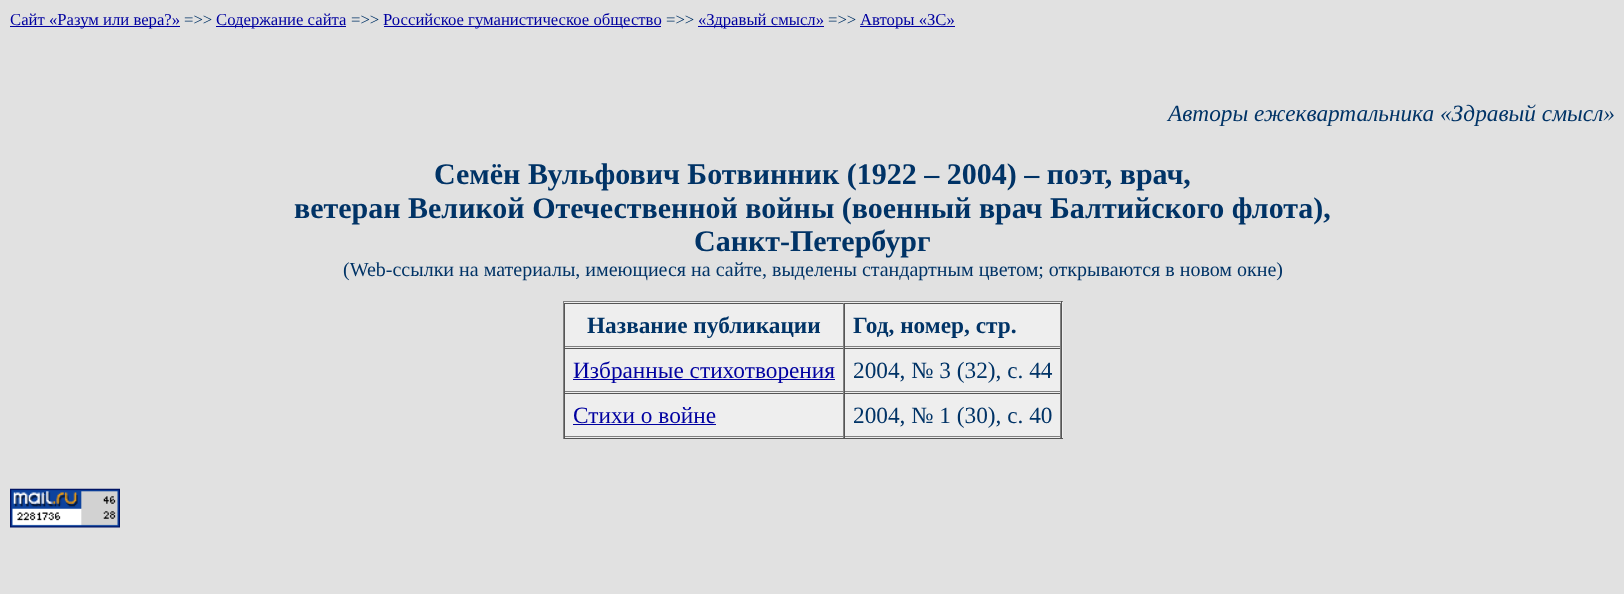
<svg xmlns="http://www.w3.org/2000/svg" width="1624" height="594">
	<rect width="100%" height="100%" fill="#E1E1E1" />
	<rect x="10" y="26" width="170" height="1" fill="#0000A0" />
	<text x="10" y="25" font-family="Liberation Serif" font-size="16.7" fill="#0000A0">Сайт «Разум или вера?»</text>
	<text x="184" y="25" font-family="Liberation Serif" font-size="16.7" fill="#003366">=&gt;&gt;</text>
	<rect x="216" y="26" width="130" height="1" fill="#0000A0" />
	<text x="216" y="25" font-family="Liberation Serif" font-size="16.7" fill="#0000A0">Содержание сайта</text>
	<text x="351" y="25" font-family="Liberation Serif" font-size="16.7" fill="#003366">=&gt;&gt;</text>
	<rect x="384" y="26" width="277" height="1" fill="#0000A0" />
	<text x="383" y="25" font-family="Liberation Serif" font-size="16.7" fill="#0000A0">Российское гуманистическое общество</text>
	<text x="666" y="25" font-family="Liberation Serif" font-size="16.7" fill="#003366">=&gt;&gt;</text>
	<rect x="698" y="26" width="126" height="1" fill="#0000A0" />
	<text x="698" y="25" font-family="Liberation Serif" font-size="16.7" fill="#0000A0">«Здравый смысл»</text>
	<text x="828" y="25" font-family="Liberation Serif" font-size="16.7" fill="#003366">=&gt;&gt;</text>
	<rect x="860" y="26" width="95" height="1" fill="#0000A0" />
	<text x="860" y="25" font-family="Liberation Serif" font-size="16.7" fill="#0000A0">Авторы «ЗС»</text>
	<text x="1168" y="121" font-family="Liberation Serif" font-size="23.3" font-style="italic" fill="#003366">Авторы ежеквартальника «Здравый смысл»</text>
	<g font-family="Liberation Serif" font-size="30" font-weight="700" fill="#003366">
		<text x="434" y="184">Семён Вульфович Ботвинник (1922 – 2004) – поэт, врач,</text>
		<text x="294" y="218">ветеран Великой Отечественной войны (военный врач Балтийского флота),</text>
		<text x="694" y="251">Санкт-Петербург</text>
	</g>
	<text x="343" y="276" font-family="Liberation Serif" font-size="20" fill="#003366">(Web-ссылки на материалы, имеющиеся на сайте, выделены стандартным цветом; открываются в новом окне)</text>
	<rect x="564" y="302" width="499" height="136" fill="#EEEEEE" />
	<rect x="563" y="301" width="500" height="1" fill="#808080" />
	<rect x="1061" y="301" width="1" height="138" fill="#555555" />
	<rect x="563" y="438" width="500" height="1" fill="#555555" />
	<rect x="563" y="301" width="1" height="138" fill="#808080" />
	<rect x="564" y="303" width="497" height="1" fill="#555555" />
	<rect x="843" y="303" width="1" height="45" fill="#808080" />
	<rect x="564" y="346" width="280" height="1" fill="#808080" />
	<rect x="564" y="303" width="1" height="45" fill="#555555" />
	<text x="587" y="333" font-family="Liberation Serif" font-size="23.3" font-weight="700" fill="#003366">Название публикации</text>
	<rect x="1060" y="303" width="1" height="45" fill="#808080" />
	<rect x="844" y="346" width="217" height="1" fill="#808080" />
	<rect x="844" y="303" width="1" height="45" fill="#555555" />
	<text x="853" y="333" font-family="Liberation Serif" font-size="23.3" font-weight="700" fill="#003366">Год, номер, стр.</text>
	<rect x="564" y="348" width="497" height="1" fill="#555555" />
	<rect x="843" y="348" width="1" height="45" fill="#808080" />
	<rect x="564" y="391" width="280" height="1" fill="#808080" />
	<rect x="564" y="348" width="1" height="45" fill="#555555" />
	<rect x="573" y="379" width="262" height="1" fill="#0000A0" />
	<text x="573" y="378" font-family="Liberation Serif" font-size="23.3" fill="#0000A0">Избранные стихотворения</text>
	<rect x="1060" y="348" width="1" height="45" fill="#808080" />
	<rect x="844" y="391" width="217" height="1" fill="#808080" />
	<rect x="844" y="348" width="1" height="45" fill="#555555" />
	<text x="853" y="378" font-family="Liberation Serif" font-size="23.3" fill="#003366">2004, № 3 (32), с. 44</text>
	<rect x="564" y="393" width="497" height="1" fill="#555555" />
	<rect x="843" y="393" width="1" height="45" fill="#808080" />
	<rect x="564" y="436" width="280" height="1" fill="#808080" />
	<rect x="564" y="393" width="1" height="45" fill="#555555" />
	<text x="573" y="423" font-family="Liberation Serif" font-size="23.3" fill="#0000A0">Стихи о войне</text>
	<rect x="573" y="424" width="143" height="1" fill="#0000A0" />
	<rect x="1060" y="393" width="1" height="45" fill="#808080" />
	<rect x="844" y="436" width="217" height="1" fill="#808080" />
	<rect x="844" y="393" width="1" height="45" fill="#555555" />
	<text x="853" y="423" font-family="Liberation Serif" font-size="23.3" fill="#003366">2004, № 1 (30), с. 40</text>
	<image x="10" y="488" width="110" height="40" href="assets/img1.png" />
</svg>
